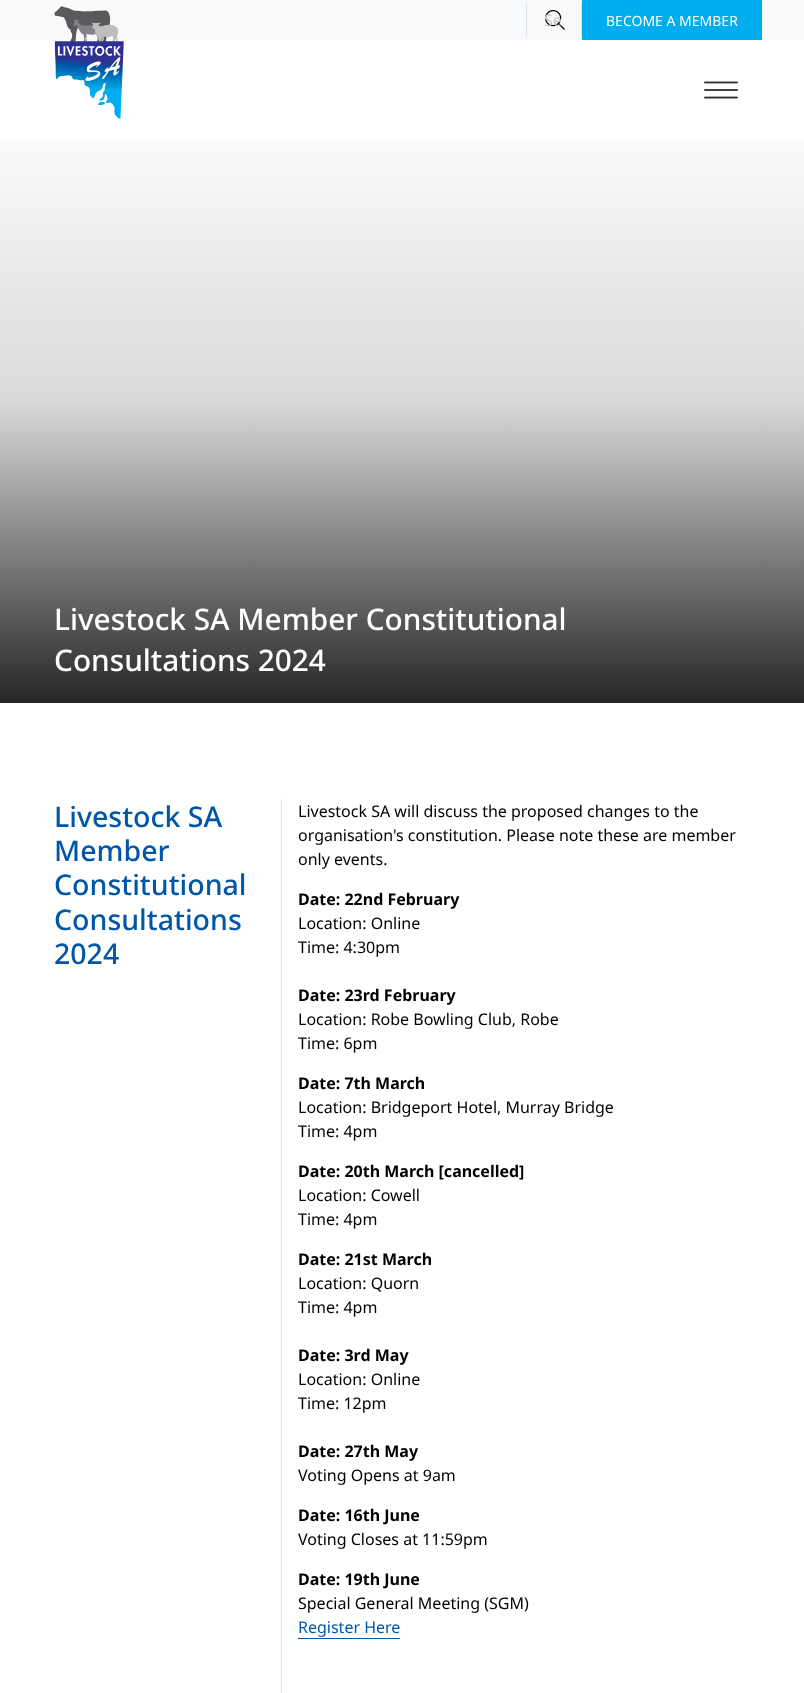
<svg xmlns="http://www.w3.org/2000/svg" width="804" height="1693">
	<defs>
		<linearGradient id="g1" gradientUnits="userSpaceOnUse" x1="402" y1="100" x2="402" y2="703"><stop offset="0" stop-color="#FFFFFF" /><stop offset="0.5" stop-color="#D9D9D9" /><stop offset="1" stop-color="#262626" /></linearGradient>
	</defs>
	<rect width="100%" height="100%" fill="#FFFFFF" />
	<rect x="0" y="0" width="804" height="40" fill="#F8F9FA" />
	<image x="54" y="6" width="70" height="113" href="assets/img1.png" />
	<image x="704" y="81" width="34" height="18" href="assets/img2.png" />
	<rect x="581" y="3" width="1" height="34" fill="#DEE2E6" />
	<rect x="526" y="3" width="1" height="34" fill="#DEE2E6" />
	<image x="545" y="10" width="20" height="20" href="assets/img3.png" />
	<text x="544" y="26" font-family="Noto Sans" font-size="16" fill="#C7C8C9">Se</text>
	<rect x="582" y="0" width="180" height="40" fill="#00ADEF" />
	<text x="606" y="26" font-family="Noto Sans" font-size="14" fill="#FFFFFF">BECOME A MEMBER</text>
	<rect x="0" y="140" width="804" height="563" fill="url(#g1)" />
	<g font-family="Noto Sans" font-size="29.75" font-weight="500" fill="#FFFFFF">
		<text x="54" y="630">Livestock SA Member Constitutional</text>
		<text x="54" y="671">Consultations 2024</text>
	</g>
	<rect x="281" y="799" width="1" height="894" fill="#DEE2E6" />
	<g font-family="Noto Sans" font-size="28.5" font-weight="500" fill="#0056A7">
		<text x="54" y="827">Livestock SA</text>
		<text x="54" y="861">Member</text>
		<text x="54" y="895">Constitutional</text>
		<text x="54" y="930">Consultations</text>
		<text x="54" y="964">2024</text>
	</g>
	<g font-family="Noto Sans" font-size="16" fill="#000000">
		<text x="298" y="817">Livestock SA will discuss the proposed changes to the</text>
		<text x="298" y="841">organisation's constitution. Please note these are member</text>
		<text x="298" y="865">only events.</text>
	</g>
	<text x="298" y="905" font-family="Noto Sans" font-size="16" font-weight="700" fill="#000000">Date: 22nd February</text>
	<g font-family="Noto Sans" font-size="16" fill="#000000">
		<text x="298" y="929">Location: Online</text>
		<text x="298" y="953">Time: 4:30pm</text>
	</g>
	<text x="298" y="1001" font-family="Noto Sans" font-size="16" font-weight="700" fill="#000000">Date: 23rd February</text>
	<g font-family="Noto Sans" font-size="16" fill="#000000">
		<text x="298" y="1025">Location: Robe Bowling Club, Robe</text>
		<text x="298" y="1049">Time: 6pm</text>
	</g>
	<text x="298" y="1089" font-family="Noto Sans" font-size="16" font-weight="700" fill="#000000">Date: 7th March</text>
	<g font-family="Noto Sans" font-size="16" fill="#000000">
		<text x="298" y="1113">Location: Bridgeport Hotel, Murray Bridge</text>
		<text x="298" y="1137">Time: 4pm</text>
	</g>
	<text x="298" y="1177" font-family="Noto Sans" font-size="16" font-weight="700" fill="#000000">Date: 20th March [cancelled]</text>
	<g font-family="Noto Sans" font-size="16" fill="#000000">
		<text x="298" y="1201">Location: Cowell</text>
		<text x="298" y="1225">Time: 4pm</text>
	</g>
	<text x="298" y="1265" font-family="Noto Sans" font-size="16" font-weight="700" fill="#000000">Date: 21st March</text>
	<g font-family="Noto Sans" font-size="16" fill="#000000">
		<text x="298" y="1289">Location: Quorn</text>
		<text x="298" y="1313">Time: 4pm</text>
	</g>
	<text x="298" y="1361" font-family="Noto Sans" font-size="16" font-weight="700" fill="#000000">Date: 3rd May</text>
	<g font-family="Noto Sans" font-size="16" fill="#000000">
		<text x="298" y="1385">Location: Online</text>
		<text x="298" y="1409">Time: 12pm</text>
	</g>
	<text x="298" y="1457" font-family="Noto Sans" font-size="16" font-weight="700" fill="#000000">Date: 27th May</text>
	<text x="298" y="1481" font-family="Noto Sans" font-size="16" fill="#000000">Voting Opens at 9am</text>
	<text x="298" y="1521" font-family="Noto Sans" font-size="16" font-weight="700" fill="#000000">Date: 16th June</text>
	<text x="298" y="1545" font-family="Noto Sans" font-size="16" fill="#000000">Voting Closes at 11:59pm</text>
	<text x="298" y="1585" font-family="Noto Sans" font-size="16" font-weight="700" fill="#000000">Date: 19th June</text>
	<text x="298" y="1609" font-family="Noto Sans" font-size="16" fill="#000000">Special General Meeting (SGM)</text>
	<text x="298" y="1633" font-family="Noto Sans" font-size="16" fill="#0056A7">Register Here</text>
	<rect x="298" y="1638" width="102" height="1" fill="#0056A7" />
</svg>
